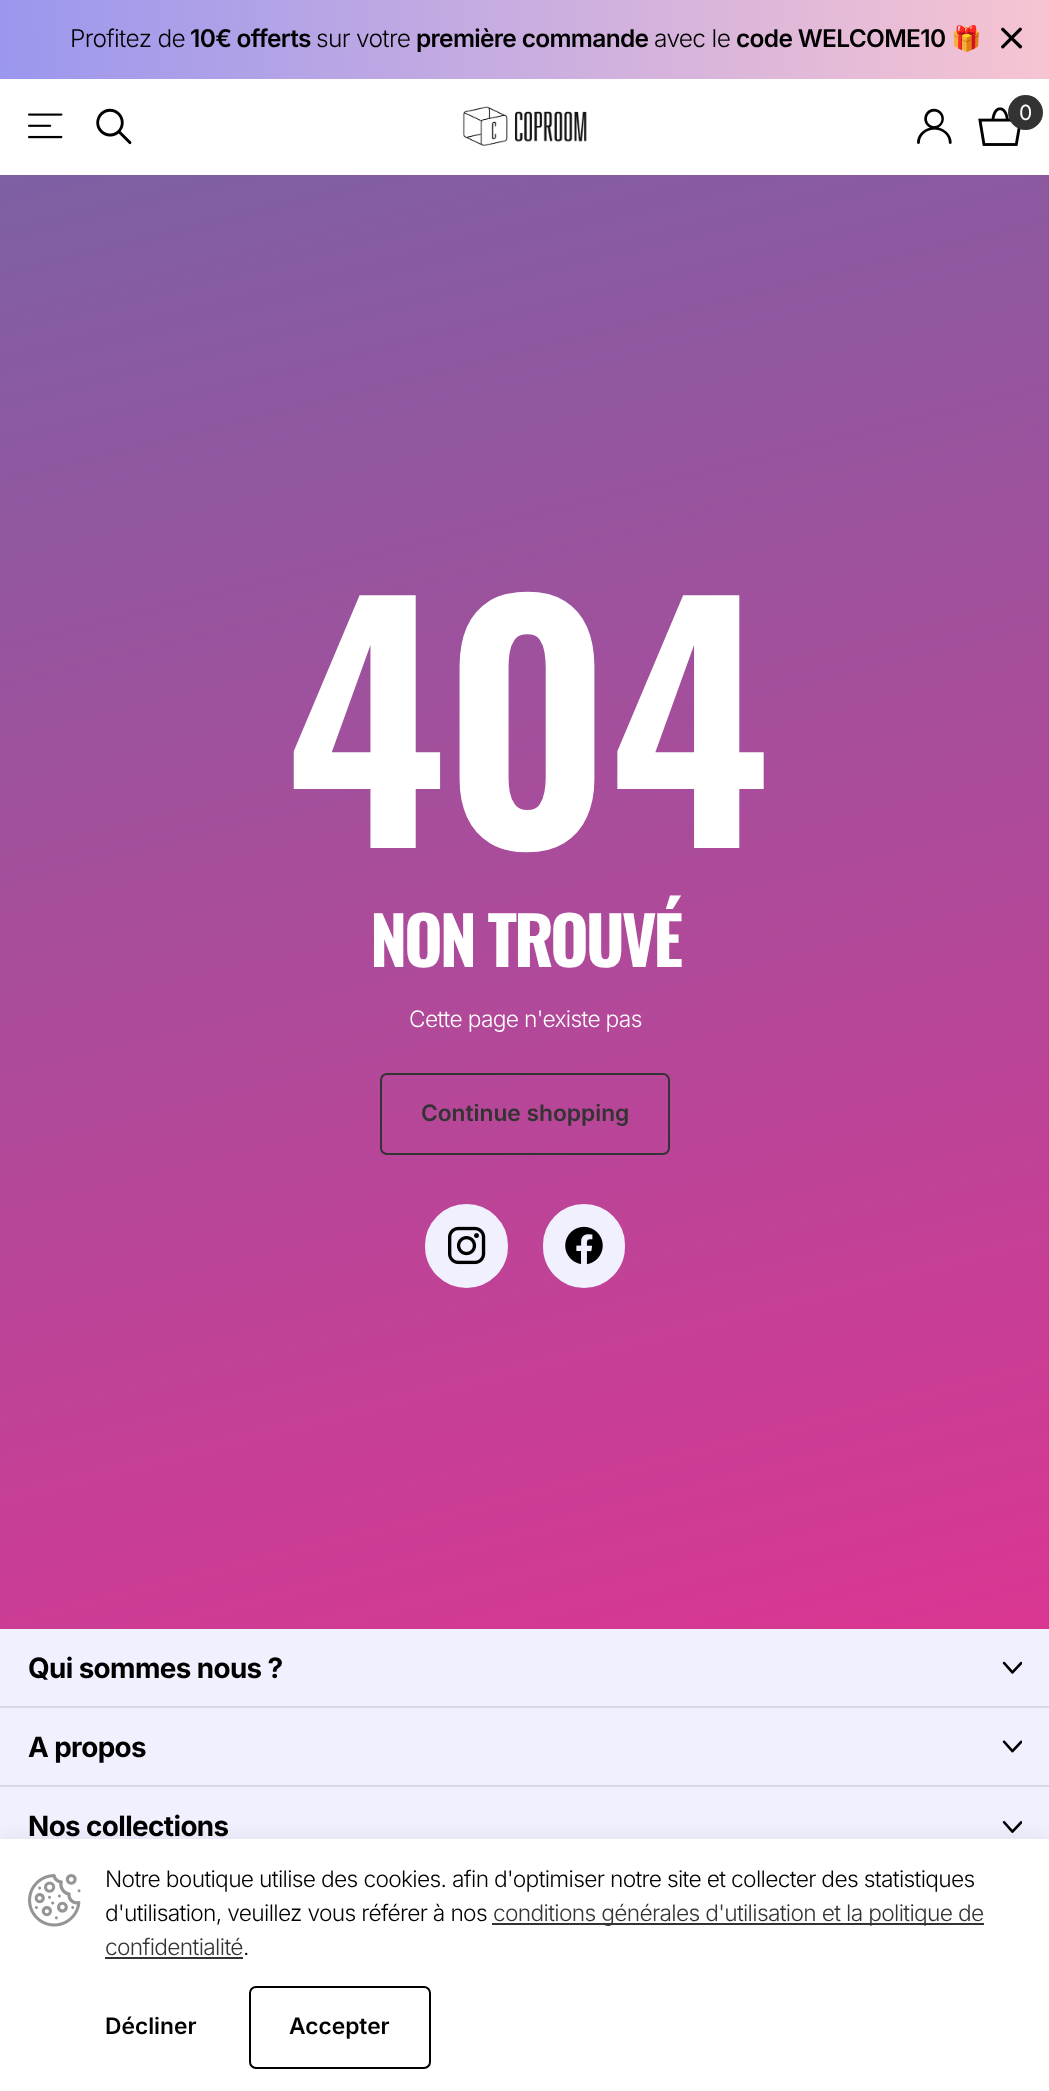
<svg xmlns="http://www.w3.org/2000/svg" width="1049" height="2091">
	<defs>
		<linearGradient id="g1" gradientUnits="userSpaceOnUse" x1="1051" y1="30" x2="-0.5" y2="49"><stop offset="0" stop-color="#F7C4D2" /><stop offset="1" stop-color="#9B97EE" /></linearGradient>
		<linearGradient id="g2" gradientUnits="userSpaceOnUse" x1="784" y1="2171" x2="266" y2="96"><stop offset="0.04" stop-color="#EF2D8E" /><stop offset="1" stop-color="#7D60A3" /></linearGradient>
	</defs>
	<rect width="100%" height="100%" fill="#FFFFFF" />
	<rect x="0" y="0" width="1049" height="79" fill="url(#g1)" />
	<text x="70" y="47" font-family="Inter" font-size="24.5" font-weight="300" letter-spacing="-0.68" fill="#000000">Profitez de</text>
	<text x="190" y="47" font-family="Inter" font-size="24.5" font-weight="600" letter-spacing="-0.68" fill="#000000">10€ offerts</text>
	<text x="316" y="47" font-family="Inter" font-size="24.5" font-weight="300" letter-spacing="-0.68" fill="#000000">sur votre</text>
	<text x="416" y="47" font-family="Inter" font-size="24.5" font-weight="600" letter-spacing="-0.68" fill="#000000">première commande</text>
	<text x="654" y="47" font-family="Inter" font-size="24.5" font-weight="300" letter-spacing="-0.68" fill="#000000">avec le</text>
	<text x="736" y="47" font-family="Inter" font-size="24.5" font-weight="600" letter-spacing="-0.68" fill="#000000">code WELCOME10</text>
	<text x="951" y="47" font-family="Noto Color Emoji" font-size="24.5" font-weight="700" letter-spacing="-0.68" fill="#000000">🎁</text>
	<image x="1001" y="27" width="22" height="22" href="assets/img1.png" />
	<image x="28" y="113" width="35" height="26" href="assets/img2.png" />
	<image x="96" y="108" width="36" height="37" href="assets/img3.png" />
	<image x="462" y="106" width="125" height="40" href="assets/img4.png" />
	<image x="917" y="108" width="35" height="36" href="assets/img5.png" />
	<image x="978" y="107" width="43" height="39" href="assets/img6.png" />
	<circle cx="1025.5" cy="112.5" r="17.5" fill="#333333" />
	<text x="1019" y="120" font-family="Inter" font-size="21" letter-spacing="-1" fill="#FFFFFF">0</text>
	<rect x="0" y="175" width="1049" height="1454" fill="url(#g2)" />
	<text x="285" y="848" font-family="Oswald" font-size="312" font-weight="600" letter-spacing="-3.25" fill="#FFFFFF">404</text>
	<text x="370" y="967" font-family="Oswald" font-size="66.5" font-weight="700" letter-spacing="-3.25" fill="#FFFFFF">NON TROUVÉ</text>
	<text x="409" y="1027" font-family="Inter" font-size="22.75" font-weight="300" letter-spacing="-0.68" fill="#FFFFFF">Cette page n'existe pas</text>
	<rect x="381" y="1074" width="288" height="80" rx="6" fill="none" stroke="#333333" stroke-width="2" />
	<text x="421" y="1121" font-family="Inter" font-size="22.75" font-weight="600" fill="#333333">Continue shopping</text>
	<rect x="426" y="1205" width="81" height="82" rx="40.5" fill="#F0F0FF" stroke="#F0F0FF" stroke-width="2" />
	<image x="448" y="1226" width="38" height="39" href="assets/img7.png" />
	<rect x="544" y="1205" width="80" height="82" rx="40" fill="#F0F0FF" stroke="#F0F0FF" stroke-width="2" />
	<image x="565" y="1226" width="38" height="39" href="assets/img8.png" />
	<rect x="0" y="1629" width="1049" height="210" fill="#F0F0FF" />
	<text x="28" y="1678" font-family="Inter" font-size="28" font-weight="700" letter-spacing="-0.6" fill="#000000">Qui sommes nous ?</text>
	<image x="1002" y="1661" width="20" height="13" href="assets/img9.png" />
	<rect x="0" y="1706" width="1049" height="2" fill="#D8D8E6" />
	<text x="28" y="1757" font-family="Inter" font-size="28" font-weight="700" letter-spacing="-0.6" fill="#000000">A propos</text>
	<image x="1002" y="1740" width="20" height="13" href="assets/img10.png" />
	<rect x="0" y="1785" width="1049" height="2" fill="#D8D8E6" />
	<text x="28" y="1836" font-family="Inter" font-size="28" font-weight="700" letter-spacing="-0.6" fill="#000000">Nos collections</text>
	<image x="1002" y="1821" width="20" height="12" href="assets/img11.png" />
	<rect x="0" y="1836" width="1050" height="252" fill="#000000" fill-opacity="0.06" filter="blur(9px)" />
	<rect x="0" y="1839" width="1049" height="252" fill="#FFFFFF" />
	<image x="28" y="1874" width="53" height="53" href="assets/img12.png" />
	<g font-family="Inter" font-size="22.75" font-weight="300" letter-spacing="-0.68" fill="#000000">
		<text x="105" y="1887">Notre boutique utilise des cookies. afin d'optimiser notre site et collecter des statistiques</text>
		<text x="105" y="1921">d'utilisation, veuillez vous référer à nos</text>
	</g>
	<rect x="492" y="1923" width="492" height="2" fill="#333333" />
	<g font-family="Inter" font-size="22.75" font-weight="300" letter-spacing="-0.68" fill="#333333">
		<text x="493" y="1921">conditions générales d'utilisation et la politique de</text>
		<text x="105" y="1955">confidentialité</text>
	</g>
	<rect x="105" y="1957" width="138" height="2" fill="#333333" />
	<text x="243" y="1955" font-family="Inter" font-size="22.75" font-weight="300" letter-spacing="-0.68" fill="#000000">.</text>
	<text x="105" y="2034" font-family="Inter" font-size="22.75" font-weight="600" fill="#000000">Décliner</text>
	<rect x="250" y="1987" width="180" height="81" rx="6" fill="none" stroke="#000000" stroke-width="2" />
	<text x="289" y="2034" font-family="Inter" font-size="22.75" font-weight="600" fill="#000000">Accepter</text>
</svg>
